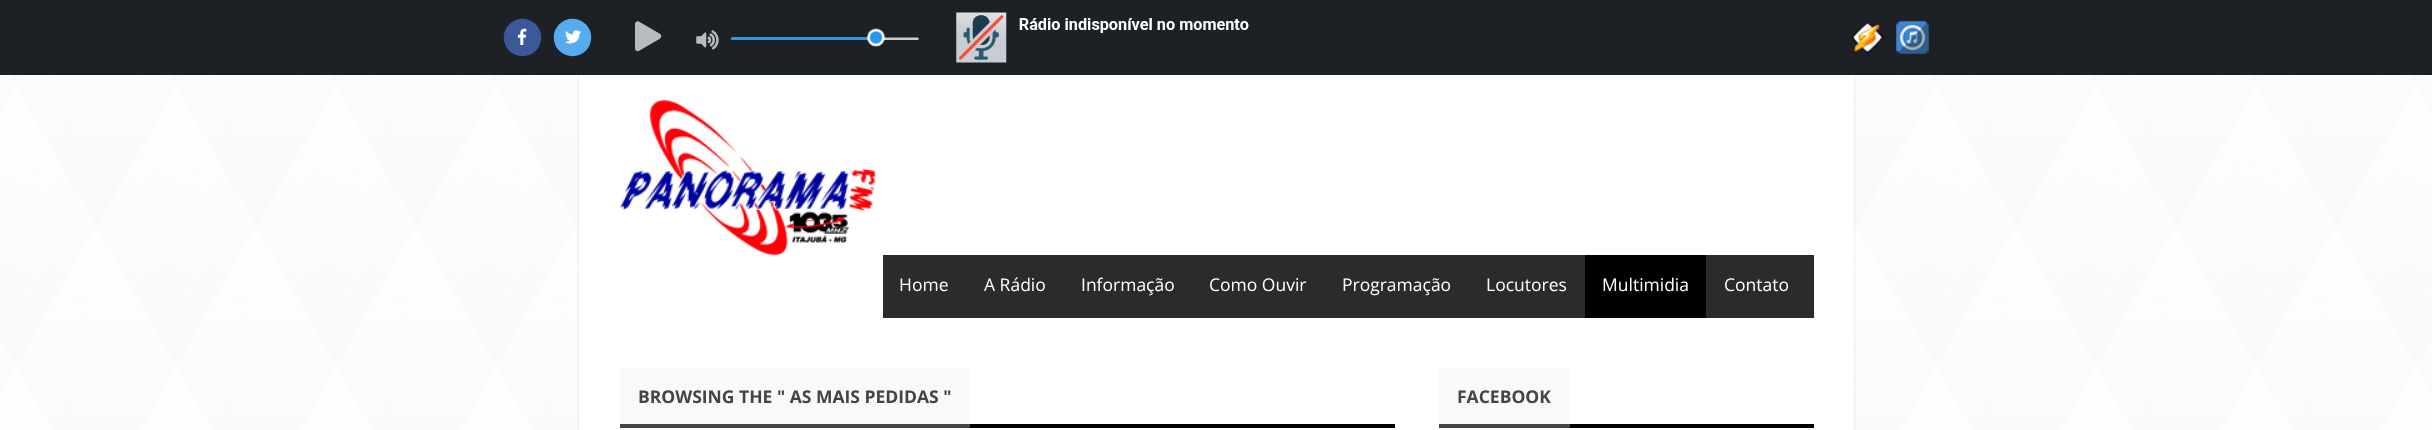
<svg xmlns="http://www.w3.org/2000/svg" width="2432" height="430">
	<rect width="100%" height="100%" fill="#FFFFFF" />
	<image x="0" y="75" width="2432" height="355" href="assets/img1.png" />
	<image x="0" y="0" width="2432" height="75" href="assets/img2.png" />
	<rect x="579" y="76" width="1275" height="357" fill="#000000" fill-opacity="0.15" filter="blur(1px)" />
	<rect x="579" y="75" width="1275" height="355" fill="#FFFFFF" />
	<image x="620" y="100" width="256" height="155" href="assets/img3.png" />
	<rect x="883" y="255" width="931" height="63" fill="#2B2B2B" />
	<g font-family="Open Sans" font-size="17.5" fill="#FFFFFF">
		<text x="899" y="291">Home</text>
		<text x="984" y="291">A Rádio</text>
		<text x="1081" y="291">Informação</text>
		<text x="1209" y="291">Como Ouvir</text>
		<text x="1342" y="291">Programação</text>
		<text x="1486" y="291">Locutores</text>
	</g>
	<rect x="1585" y="255" width="121" height="63" fill="#000000" />
	<g font-family="Open Sans" font-size="17.5" fill="#FFFFFF">
		<text x="1602" y="291">Multimidia</text>
		<text x="1724" y="291">Contato</text>
	</g>
	<rect x="970" y="424" width="425" height="4" fill="#000000" />
	<rect x="620" y="368" width="350" height="56" fill="#F9F9F9" />
	<rect x="620" y="424" width="350" height="4" fill="#444444" />
	<text x="638" y="403" font-family="Open Sans" font-size="17.5" font-weight="700" fill="#444444">BROWSING THE " AS MAIS PEDIDAS "</text>
	<rect x="1570" y="424" width="244" height="4" fill="#000000" />
	<rect x="1439" y="368" width="131" height="56" fill="#F9F9F9" />
	<rect x="1439" y="424" width="131" height="4" fill="#444444" />
	<text x="1457" y="403" font-family="Open Sans" font-size="17.5" font-weight="700" fill="#444444">FACEBOOK</text>
</svg>
